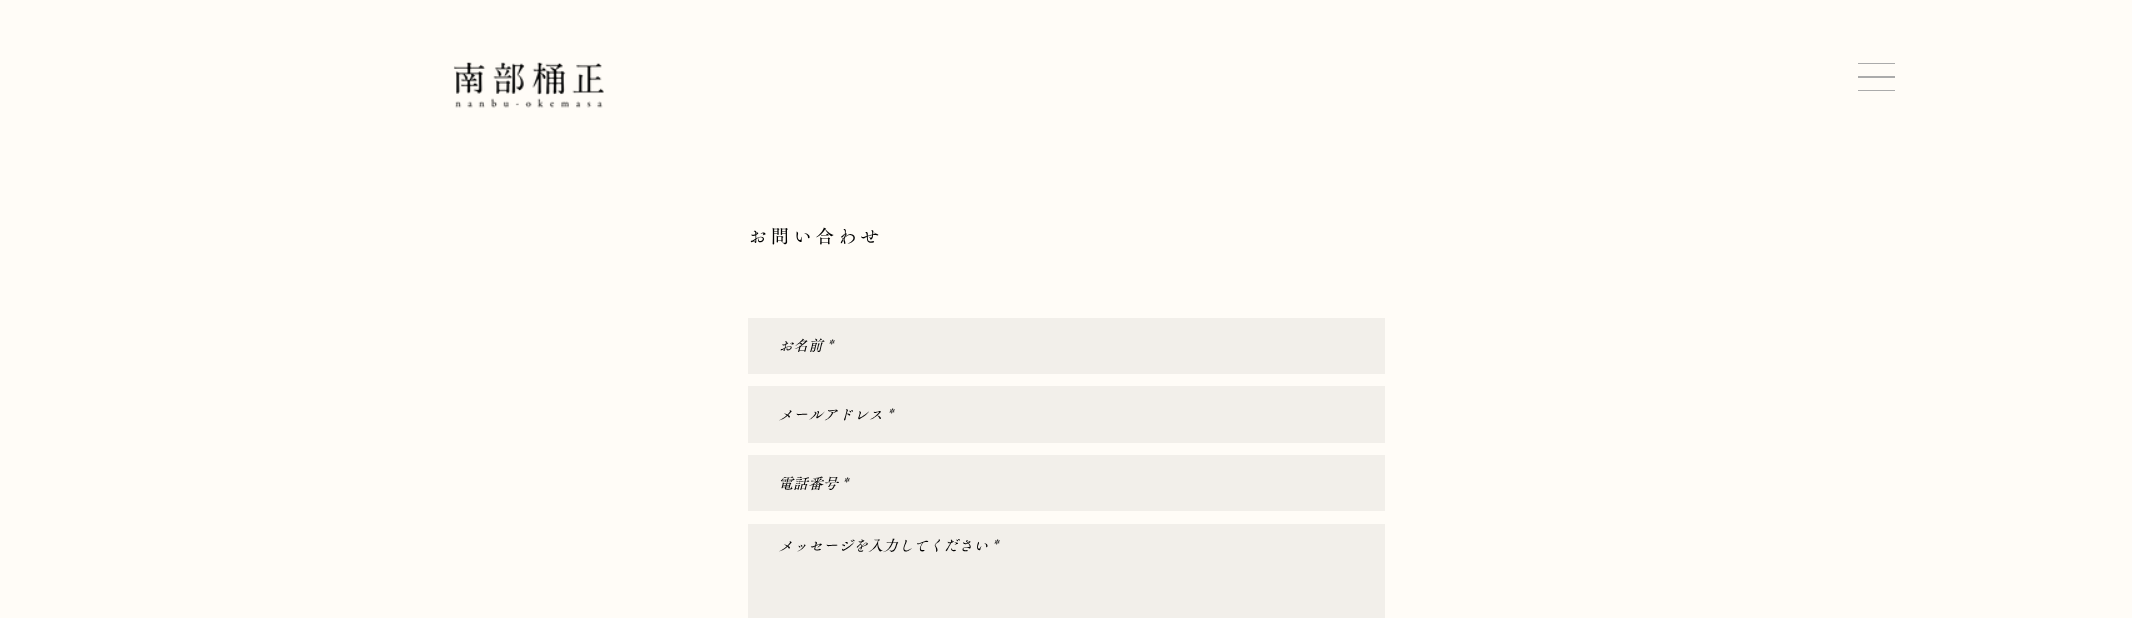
<svg xmlns="http://www.w3.org/2000/svg" width="2132" height="618">
	<rect width="100%" height="100%" fill="#FFFCF7" />
	<rect x="1858" y="63" width="37" height="1" fill="#ABABAB" />
	<rect x="1858" y="76" width="37" height="2" fill="#ABABAB" />
	<rect x="1858" y="90" width="37" height="1" fill="#ABABAB" />
	<image x="453" y="62" width="151" height="46" href="assets/img1.png" />
	<text x="748" y="243" font-family="'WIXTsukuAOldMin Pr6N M'" font-size="18.75" font-weight="500" letter-spacing="3.75" fill="#000000">お問い合わせ</text>
	<rect x="748" y="318" width="637" height="56" fill="#F2EFEA" />
	<text x="778" y="351" font-family="'WIXTsukuAOldMin Pr6N M'" font-size="15" font-weight="500" font-style="italic" fill="#000000">お名前 *</text>
	<rect x="748" y="386" width="637" height="57" fill="#F2EFEA" />
	<text x="778" y="420" font-family="'WIXTsukuAOldMin Pr6N M'" font-size="15" font-weight="500" font-style="italic" fill="#000000">メールアドレス *</text>
	<rect x="748" y="455" width="637" height="56" fill="#F2EFEA" />
	<text x="778" y="489" font-family="'WIXTsukuAOldMin Pr6N M'" font-size="15" font-weight="500" font-style="italic" fill="#000000">電話番号 *</text>
	<rect x="748" y="524" width="637" height="94" fill="#F2EFEA" />
	<text x="778" y="551" font-family="'WIXTsukuAOldMin Pr6N M'" font-size="15" font-weight="500" font-style="italic" fill="#000000">メッセージを入力してください *</text>
</svg>
